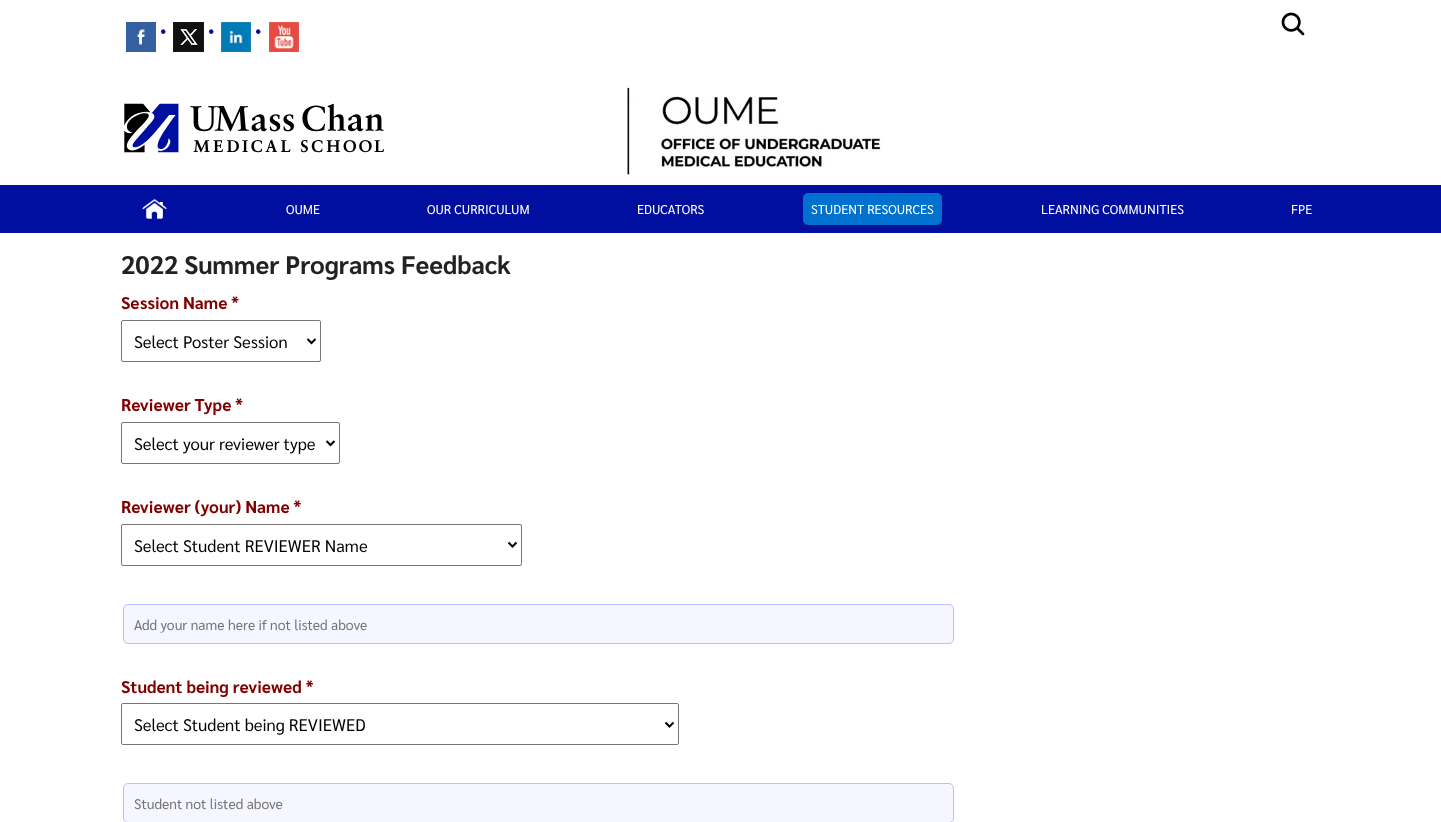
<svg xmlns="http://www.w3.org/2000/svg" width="1441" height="822">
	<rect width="100%" height="100%" fill="#FFFFFF" />
	<image x="126" y="22" width="30" height="30" href="assets/img1.png" />
	<text x="159" y="40" font-family="Sarabun" font-size="32" font-weight="500" fill="#000F9F">·</text>
	<image x="173" y="22" width="31" height="30" href="assets/img2.png" />
	<text x="207" y="40" font-family="Sarabun" font-size="32" font-weight="500" fill="#000F9F">·</text>
	<image x="221" y="22" width="30" height="30" href="assets/img3.png" />
	<text x="254" y="40" font-family="Sarabun" font-size="32" font-weight="500" fill="#000F9F">·</text>
	<image x="269" y="22" width="30" height="30" href="assets/img4.png" />
	<image x="1281" y="12" width="24" height="24" href="assets/img5.png" />
	<image x="124" y="103" width="260" height="50" href="assets/img6.png" />
	<image x="627" y="87" width="256" height="89" href="assets/img7.png" />
	<rect x="0" y="185" width="1441" height="48" fill="#000F9F" />
	<image x="142" y="199" width="25" height="20" href="assets/img8.png" />
	<g font-family="Sarabun" font-size="12.75" fill="#FFFFFF">
		<text x="286" y="214">OUME</text>
		<text x="427" y="214">OUR CURRICULUM</text>
		<text x="637" y="214">EDUCATORS</text>
	</g>
	<rect x="803" y="193" width="139" height="32" rx="5" fill="#0071CE" />
	<g font-family="Sarabun" font-size="12.75" fill="#FFFFFF">
		<text x="811" y="214">STUDENT RESOURCES</text>
		<text x="1041" y="214">LEARNING COMMUNITIES</text>
		<text x="1291" y="214">FPE</text>
	</g>
	<text x="121" y="274" font-family="Sarabun" font-size="25.4" font-weight="700" fill="#222222">2022 Summer Programs Feedback</text>
	<text x="121" y="309" font-family="Sarabun" font-size="17" font-weight="700" fill="#800000">Session Name *</text>
	<rect x="121.5" y="320.5" width="199" height="41" rx="1.5" fill="none" stroke="#767676" />
	<path d="M307.5 339L311.5 343L315.5 339" fill="none" stroke="#000000" stroke-width="2" />
	<text x="134" y="348" font-family="Sarabun" font-size="16.75" fill="#000000">Select Poster Session</text>
	<text x="121" y="411" font-family="Sarabun" font-size="17" font-weight="700" fill="#800000">Reviewer Type *</text>
	<rect x="121.5" y="422.5" width="218" height="41" rx="1.5" fill="none" stroke="#767676" />
	<path d="M326.5 441L330.5 445L334.5 441" fill="none" stroke="#000000" stroke-width="2" />
	<text x="134" y="450" font-family="Sarabun" font-size="16.75" fill="#000000">Select your reviewer type</text>
	<text x="121" y="513" font-family="Sarabun" font-size="17" font-weight="700" fill="#800000">Reviewer (your) Name *</text>
	<rect x="121.5" y="524.5" width="400" height="41" rx="1.5" fill="none" stroke="#767676" />
	<path d="M508.5 542.5L512.5 546.5L516.5 542.5" fill="none" stroke="#000000" stroke-width="2" />
	<text x="134" y="552" font-family="Sarabun" font-size="16.75" fill="#000000">Select Student REVIEWER Name</text>
	<rect x="123.5" y="604.5" width="830" height="39" rx="4.5" fill="#F5F6FF" stroke="#B7BEFF" />
	<text x="134" y="630" font-family="Sarabun" font-size="14" fill="#757575">Add your name here if not listed above</text>
	<text x="121" y="693" font-family="Sarabun" font-size="17" font-weight="700" fill="#800000">Student being reviewed *</text>
	<rect x="121.5" y="703.5" width="557" height="41" rx="1.5" fill="none" stroke="#767676" />
	<path d="M665.5 722.5L669.5 726.5L673.5 722.5" fill="none" stroke="#000000" stroke-width="2" />
	<text x="134" y="731" font-family="Sarabun" font-size="16.75" fill="#000000">Select Student being REVIEWED</text>
	<rect x="123.5" y="783.5" width="830" height="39" rx="4.5" fill="#F5F6FF" stroke="#B7BEFF" />
	<text x="134" y="809" font-family="Sarabun" font-size="14" fill="#757575">Student not listed above</text>
</svg>
